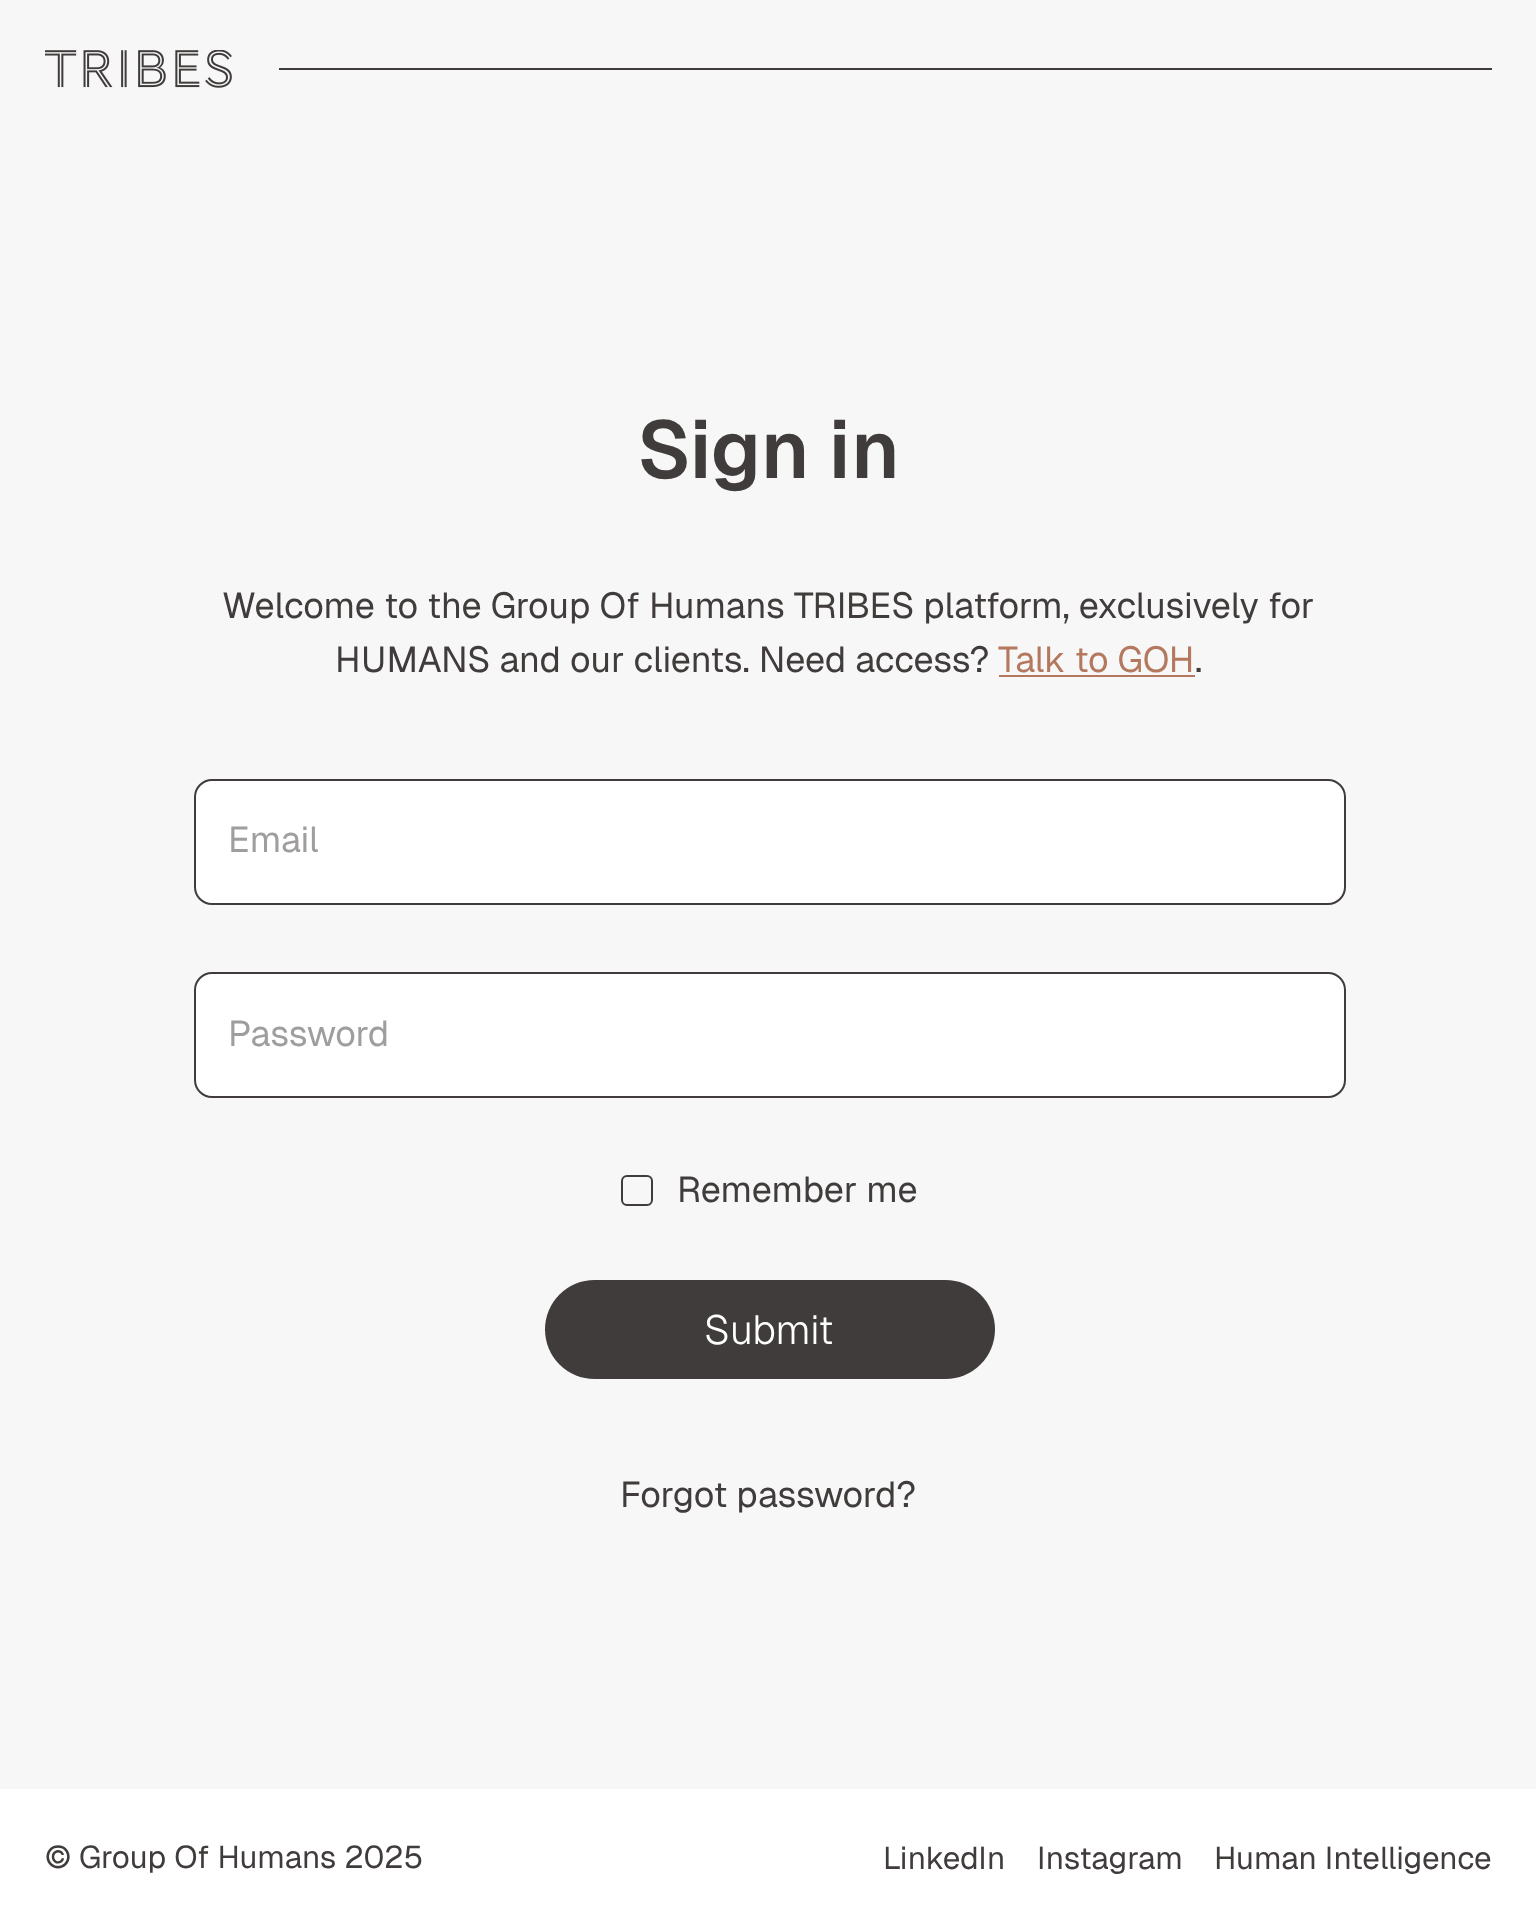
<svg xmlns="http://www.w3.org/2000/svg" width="1536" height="1925">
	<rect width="100%" height="100%" fill="#F7F7F7" />
	<image x="45" y="50" width="187" height="38" href="assets/img1.png" />
	<rect x="279" y="68" width="1213" height="2" fill="#403C3B" />
	<text x="637" y="478" font-family="Geist" font-size="81" font-weight="600" fill="#403C3B">Sign in</text>
	<g font-family="Geist" font-size="36" fill="#403C3B">
		<text x="222" y="618">Welcome to the Group Of Humans TRIBES platform, exclusively for</text>
		<text x="335" y="672">HUMANS and our clients. Need access?</text>
	</g>
	<text x="998" y="672" font-family="Geist" font-size="36" fill="#B4785E">Talk to GOH</text>
	<rect x="999" y="675" width="196" height="2" fill="#B4785E" />
	<text x="1195" y="672" font-family="Geist" font-size="36" fill="#403C3B">.</text>
	<rect x="195" y="780" width="1150" height="124" rx="17" fill="#FFFFFF" stroke="#403C3B" stroke-width="2" />
	<text x="228" y="852" font-family="Geist" font-size="36" fill="#A09E9D">Email</text>
	<rect x="195" y="973" width="1150" height="124" rx="17" fill="#FFFFFF" stroke="#403C3B" stroke-width="2" />
	<text x="228" y="1046" font-family="Geist" font-size="36" fill="#A09E9D">Password</text>
	<rect x="622" y="1176" width="30" height="29" rx="5" fill="none" stroke="#403C3B" stroke-width="2" />
	<text x="677" y="1202" font-family="Geist" font-size="36" fill="#403C3B">Remember me</text>
	<rect x="545" y="1280" width="450" height="99" rx="49.5" fill="#403C3B" />
	<text x="704" y="1344" font-family="Geist" font-size="40.5" font-weight="300" fill="#FFFFFF">Submit</text>
	<text x="620" y="1507" font-family="Geist" font-size="36" fill="#403C3B">Forgot password?</text>
	<rect x="0" y="1789" width="1536" height="136" fill="#FFFFFF" />
	<g font-family="Geist" font-size="31.5" fill="#403C3B">
		<text x="45" y="1868">© Group Of Humans 2025</text>
		<text x="883" y="1869">LinkedIn</text>
		<text x="1037" y="1869">Instagram</text>
		<text x="1214" y="1869">Human Intelligence</text>
	</g>
</svg>
